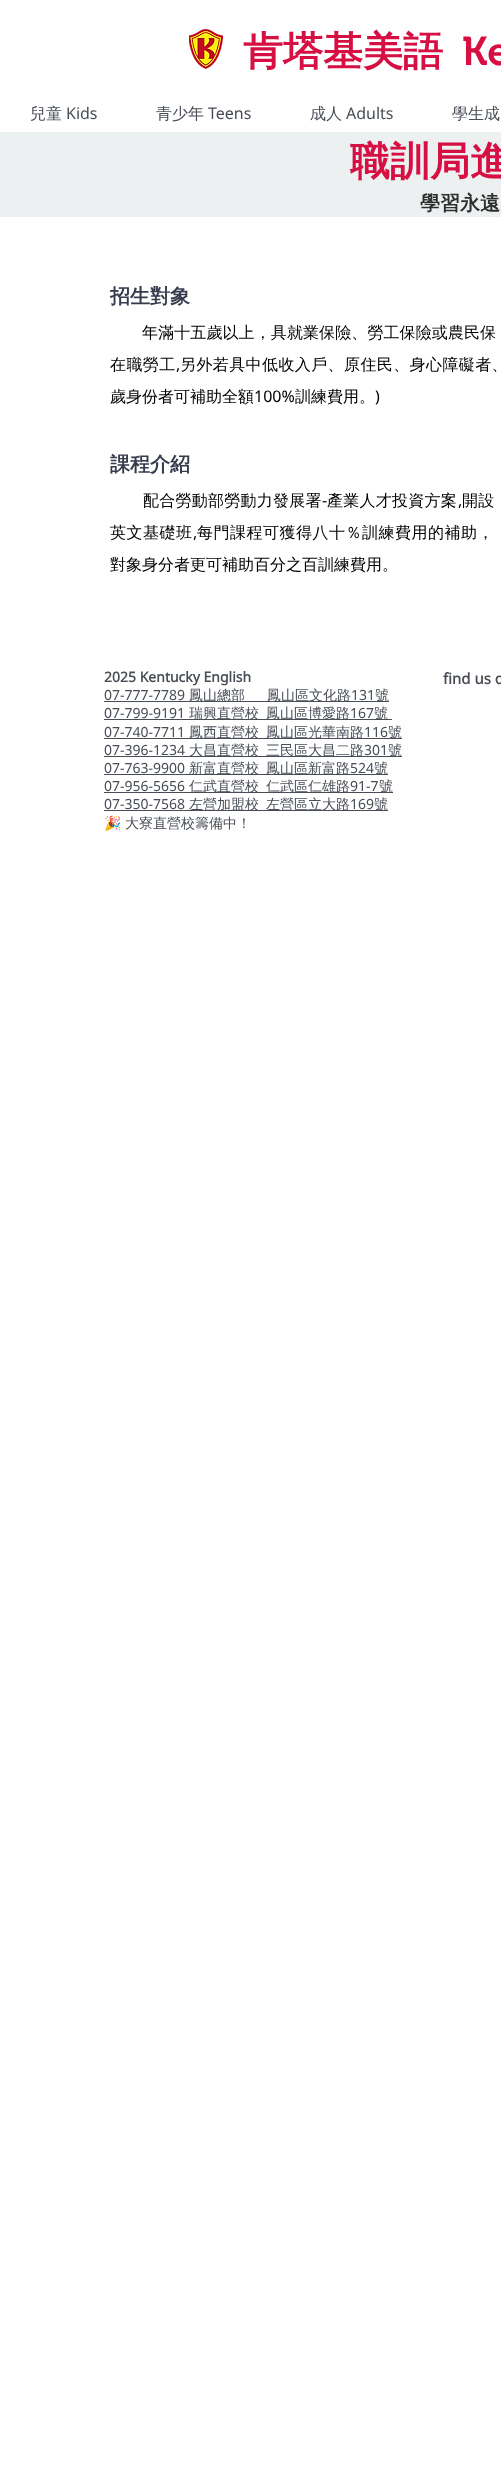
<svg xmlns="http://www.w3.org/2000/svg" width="501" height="2469">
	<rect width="100%" height="100%" fill="#FFFFFF" />
	<image x="189" y="29" width="34" height="40" href="assets/img1.png" />
	<text x="243" y="65" font-family="WenQuanYi Zen Hei" font-size="40" font-weight="700" fill="#D61043">肯塔基美語</text>
	<text x="462" y="65" font-family="'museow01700'" font-size="40" font-weight="600" fill="#D61043">Ke</text>
	<text x="30" y="119" font-family="WenQuanYi Zen Hei" font-size="16" font-weight="500" fill="#484D56">兒童</text>
	<text x="66" y="119" font-family="Noto Sans" font-size="16" fill="#484D56">Kids</text>
	<text x="156" y="119" font-family="WenQuanYi Zen Hei" font-size="16" font-weight="500" fill="#484D56">青少年</text>
	<text x="208" y="119" font-family="Noto Sans" font-size="16" fill="#484D56">Teens</text>
	<text x="310" y="119" font-family="WenQuanYi Zen Hei" font-size="16" font-weight="500" fill="#484D56">成人</text>
	<text x="346" y="119" font-family="Noto Sans" font-size="16" fill="#484D56">Adults</text>
	<text x="452" y="119" font-family="WenQuanYi Zen Hei" font-size="16" font-weight="500" fill="#484D56">學生成</text>
	<rect x="0" y="132" width="501" height="85" fill="#ECF0F1" />
	<text x="350" y="175" font-family="WenQuanYi Zen Hei" font-size="40" font-weight="700" fill="#D61043">職訓局進</text>
	<text x="420" y="210" font-family="WenQuanYi Zen Hei" font-size="20" font-weight="700" fill="#2F2E2E">學習永遠</text>
	<text x="110" y="303" font-family="WenQuanYi Zen Hei" font-size="20" font-weight="700" fill="#373B4D">招生對象</text>
	<text x="142" y="338" font-family="WenQuanYi Zen Hei" font-size="16" font-weight="500" letter-spacing="0.1" fill="#000000">年滿十五歲以上，具就業保險、勞工保險或農民保</text>
	<text x="110" y="370" font-family="WenQuanYi Zen Hei" font-size="16" font-weight="500" letter-spacing="0.4" fill="#000000">在職勞工</text>
	<text x="176" y="370" font-family="Noto Sans" font-size="16" letter-spacing="0.4" fill="#000000">,</text>
	<text x="180" y="370" font-family="WenQuanYi Zen Hei" font-size="16" font-weight="500" letter-spacing="0.4" fill="#000000">另外若具中低收入戶、原住民、身心障礙者、</text>
	<text x="110" y="402" font-family="WenQuanYi Zen Hei" font-size="16" font-weight="500" fill="#000000">歲身份者可補助全額</text>
	<text x="254" y="402" font-family="Noto Sans" font-size="16" fill="#000000">100%</text>
	<text x="295" y="402" font-family="WenQuanYi Zen Hei" font-size="16" font-weight="500" fill="#000000">訓練費用。</text>
	<text x="375" y="402" font-family="Noto Sans" font-size="16" fill="#000000">)</text>
	<text x="110" y="471" font-family="WenQuanYi Zen Hei" font-size="20" font-weight="700" fill="#373B4D">課程介紹</text>
	<text x="143" y="506" font-family="WenQuanYi Zen Hei" font-size="16" font-weight="500" letter-spacing="0.25" fill="#000000">配合勞動部勞動力發展署</text>
	<text x="322" y="506" font-family="Noto Sans" font-size="16" letter-spacing="0.25" fill="#000000">-</text>
	<g font-family="WenQuanYi Zen Hei" font-size="16" font-weight="500" letter-spacing="0.25" fill="#000000">
		<text x="327" y="506">產業人才投資方案</text>
		<text x="462" y="506">開設</text>
	</g>
	<text x="458" y="506" font-family="Noto Sans" font-size="16" letter-spacing="0.25" fill="#000000">,</text>
	<text x="110" y="538" font-family="WenQuanYi Zen Hei" font-size="16" font-weight="500" letter-spacing="0.5" fill="#000000">英文基礎班</text>
	<text x="193" y="538" font-family="Noto Sans" font-size="16" letter-spacing="0.5" fill="#000000">,</text>
	<text x="197" y="538" font-family="WenQuanYi Zen Hei" font-size="16" font-weight="500" letter-spacing="0.5" fill="#000000">每門課程可獲得八十％訓練費用的補助，</text>
	<text x="110" y="570" font-family="WenQuanYi Zen Hei" font-size="16" font-weight="500" fill="#000000">對象身分者更可補助百分之百訓練費用。</text>
	<text x="104" y="682" font-family="Noto Sans" font-size="14" font-weight="700" fill="#484D56">2025 Kentucky English</text>
	<text x="104" y="700" font-family="Noto Sans" font-size="14" fill="#484D56">07-777-7789</text>
	<rect x="104" y="701" width="285" height="1" fill="#484D56" />
	<g font-family="WenQuanYi Zen Hei" font-size="14" font-weight="500" fill="#484D56">
		<text x="189" y="700">鳳山總部</text>
		<text x="267" y="700">鳳山區文化路</text>
	</g>
	<text x="351" y="700" font-family="Noto Sans" font-size="14" fill="#484D56">131</text>
	<text x="375" y="700" font-family="WenQuanYi Zen Hei" font-size="14" font-weight="500" fill="#484D56">號</text>
	<text x="104" y="718" font-family="Noto Sans" font-size="14" fill="#484D56">07-799-9191</text>
	<rect x="104" y="719" width="288" height="1" fill="#484D56" />
	<g font-family="WenQuanYi Zen Hei" font-size="14" font-weight="500" fill="#484D56">
		<text x="189" y="718">瑞興直營校</text>
		<text x="266" y="718">鳳山區博愛路</text>
	</g>
	<text x="350" y="718" font-family="Noto Sans" font-size="14" fill="#484D56">167</text>
	<text x="374" y="718" font-family="WenQuanYi Zen Hei" font-size="14" font-weight="500" fill="#484D56">號</text>
	<text x="104" y="737" font-family="Noto Sans" font-size="14" fill="#484D56">07-740-7711</text>
	<rect x="104" y="738" width="298" height="1" fill="#484D56" />
	<g font-family="WenQuanYi Zen Hei" font-size="14" font-weight="500" fill="#484D56">
		<text x="189" y="737">鳳西直營校</text>
		<text x="266" y="737">鳳山區光華南路</text>
	</g>
	<text x="364" y="737" font-family="Noto Sans" font-size="14" fill="#484D56">116</text>
	<text x="388" y="737" font-family="WenQuanYi Zen Hei" font-size="14" font-weight="500" fill="#484D56">號</text>
	<text x="104" y="755" font-family="Noto Sans" font-size="14" fill="#484D56">07-396-1234</text>
	<rect x="104" y="756" width="298" height="1" fill="#484D56" />
	<g font-family="WenQuanYi Zen Hei" font-size="14" font-weight="500" fill="#484D56">
		<text x="189" y="755">大昌直營校</text>
		<text x="266" y="755">三民區大昌二路</text>
	</g>
	<text x="364" y="755" font-family="Noto Sans" font-size="14" fill="#484D56">301</text>
	<text x="388" y="755" font-family="WenQuanYi Zen Hei" font-size="14" font-weight="500" fill="#484D56">號</text>
	<text x="104" y="773" font-family="Noto Sans" font-size="14" fill="#484D56">07-763-9900</text>
	<rect x="104" y="774" width="284" height="1" fill="#484D56" />
	<g font-family="WenQuanYi Zen Hei" font-size="14" font-weight="500" fill="#484D56">
		<text x="189" y="773">新富直營校</text>
		<text x="266" y="773">鳳山區新富路</text>
	</g>
	<text x="350" y="773" font-family="Noto Sans" font-size="14" fill="#484D56">524</text>
	<text x="374" y="773" font-family="WenQuanYi Zen Hei" font-size="14" font-weight="500" fill="#484D56">號</text>
	<text x="104" y="791" font-family="Noto Sans" font-size="14" fill="#484D56">07-956-5656</text>
	<rect x="104" y="792" width="289" height="1" fill="#484D56" />
	<g font-family="WenQuanYi Zen Hei" font-size="14" font-weight="500" fill="#484D56">
		<text x="189" y="791">仁武直營校</text>
		<text x="266" y="791">仁武區仁雄路</text>
	</g>
	<text x="350" y="791" font-family="Noto Sans" font-size="14" fill="#484D56">91-7</text>
	<text x="379" y="791" font-family="WenQuanYi Zen Hei" font-size="14" font-weight="500" fill="#484D56">號</text>
	<text x="104" y="809" font-family="Noto Sans" font-size="14" fill="#484D56">07-350-7568</text>
	<rect x="104" y="810" width="284" height="1" fill="#484D56" />
	<g font-family="WenQuanYi Zen Hei" font-size="14" font-weight="500" fill="#484D56">
		<text x="189" y="809">左營加盟校</text>
		<text x="266" y="809">左營區立大路</text>
	</g>
	<text x="350" y="809" font-family="Noto Sans" font-size="14" fill="#484D56">169</text>
	<text x="374" y="809" font-family="WenQuanYi Zen Hei" font-size="14" font-weight="500" fill="#484D56">號</text>
	<text x="104" y="828" font-family="Noto Color Emoji" font-size="14" fill="#484D56">🎉</text>
	<text x="125" y="828" font-family="WenQuanYi Zen Hei" font-size="14" font-weight="500" fill="#484D56">大寮直營校籌備中！</text>
	<text x="443" y="684" font-family="Noto Sans" font-size="15" font-weight="700" fill="#484D56">find us o</text>
</svg>
